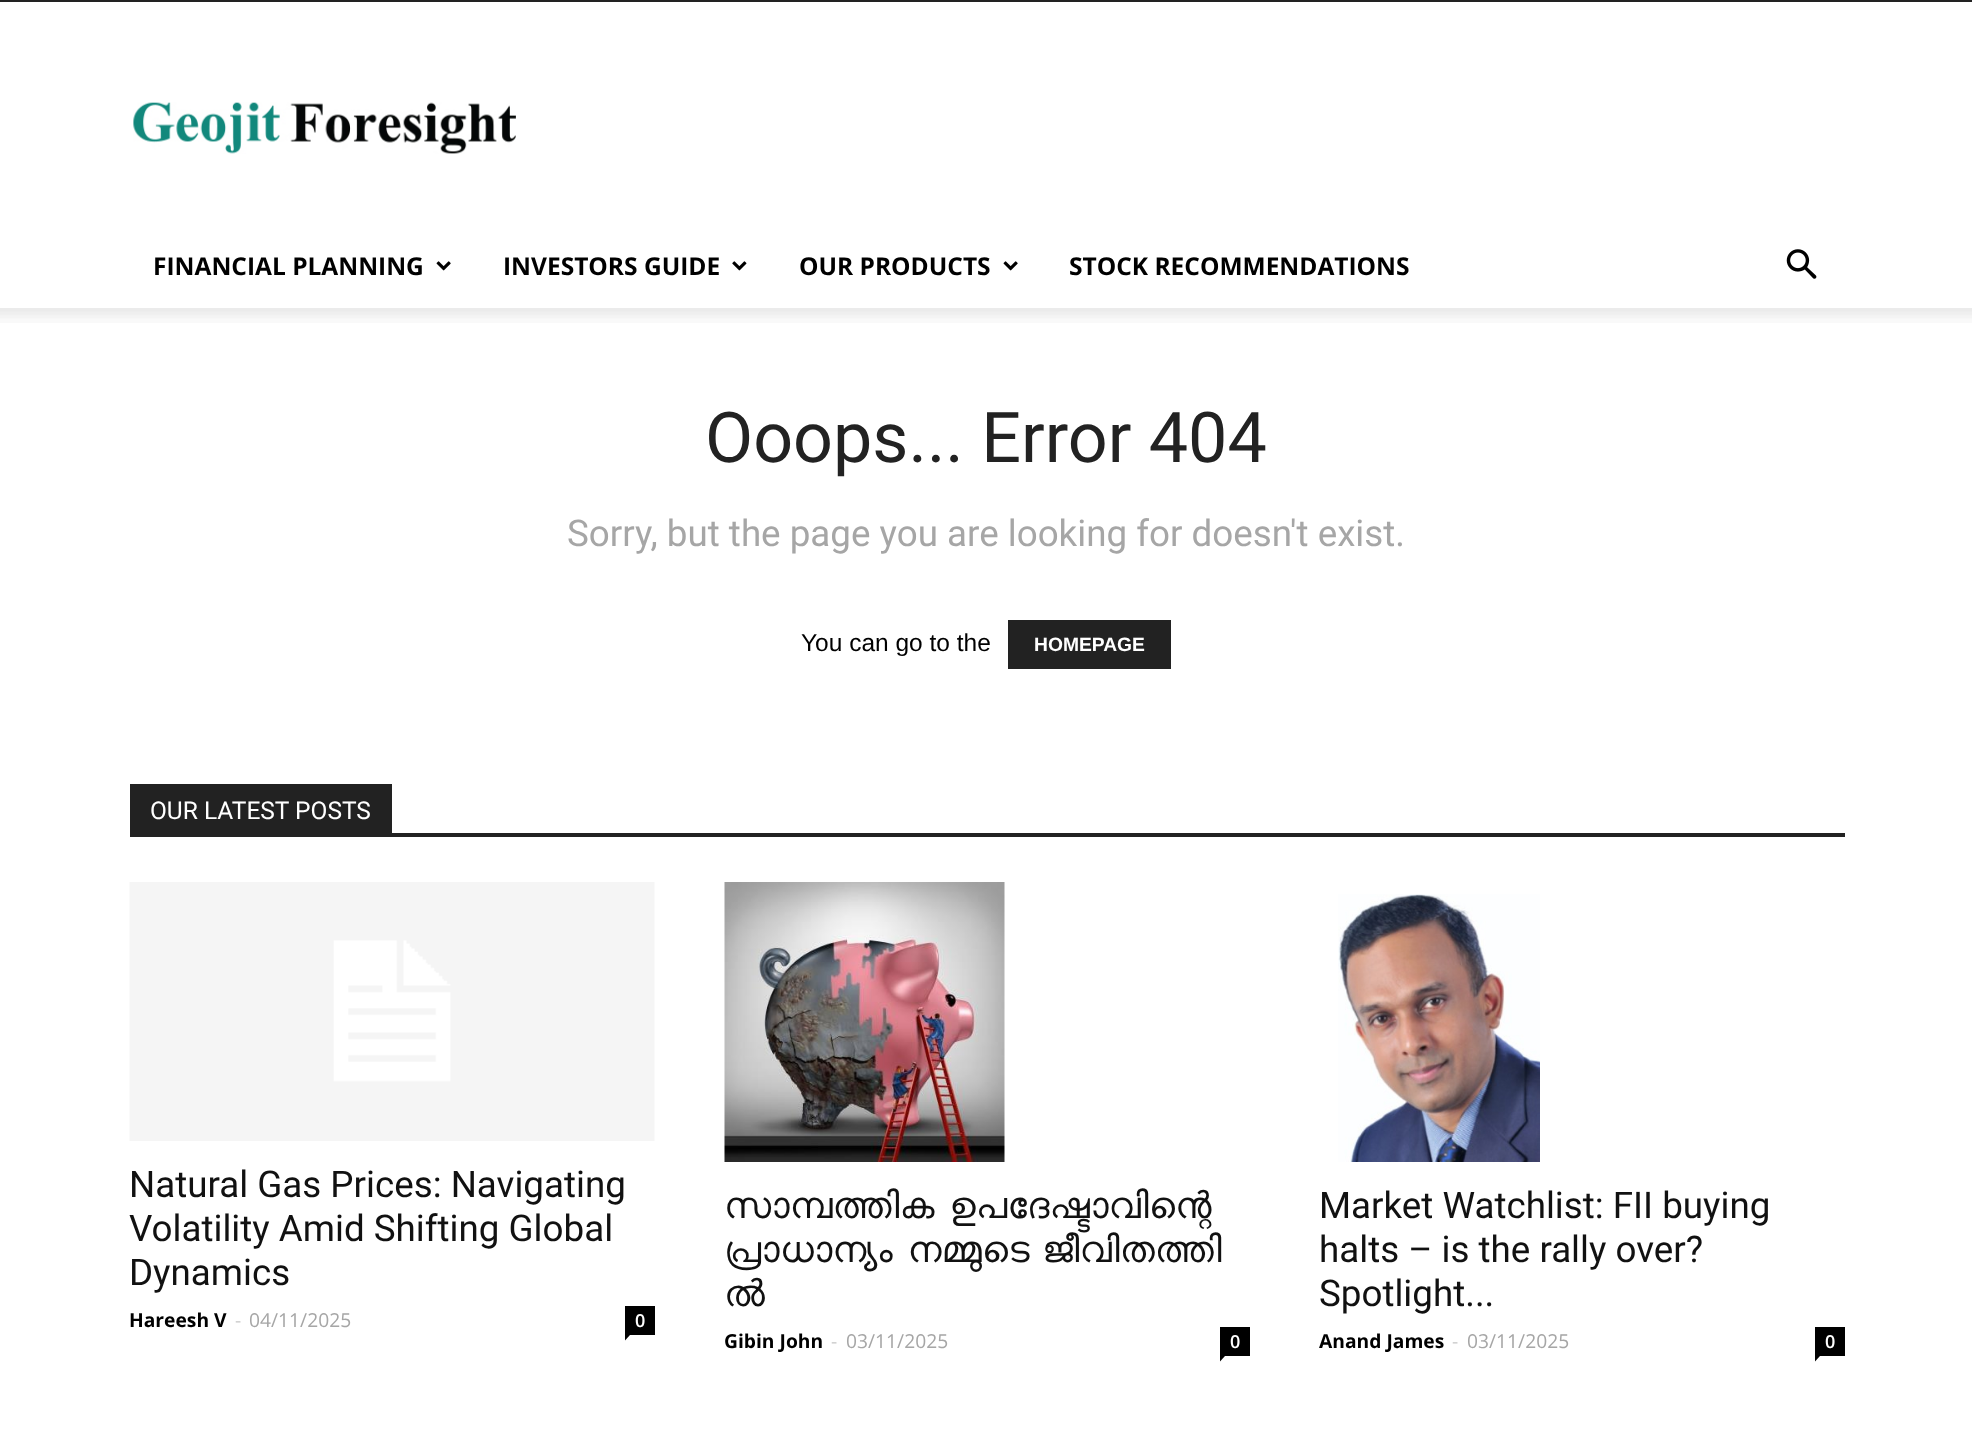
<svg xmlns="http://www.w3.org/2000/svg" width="1972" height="1447">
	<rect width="100%" height="100%" fill="#FFFFFF" />
	<rect x="0" y="0" width="1972" height="2" fill="#222222" />
	<image x="133" y="102" width="383" height="52" href="assets/img1.png" />
	<text x="153" y="275" font-family="Open Sans" font-size="24.5" font-weight="700" fill="#000000">FINANCIAL PLANNING</text>
	<image x="436" y="261" width="15" height="10" href="assets/img2.png" />
	<text x="503" y="275" font-family="Open Sans" font-size="24.5" font-weight="700" fill="#000000">INVESTORS GUIDE</text>
	<image x="732" y="261" width="15" height="10" href="assets/img3.png" />
	<text x="799" y="275" font-family="Open Sans" font-size="24.5" font-weight="700" fill="#000000">OUR PRODUCTS</text>
	<image x="1003" y="261" width="15" height="10" href="assets/img2.png" />
	<text x="1069" y="275" font-family="Open Sans" font-size="24.5" font-weight="700" fill="#000000">STOCK RECOMMENDATIONS</text>
	<image x="1786" y="249" width="31" height="30" href="assets/img4.png" />
	<image x="0" y="308" width="1972" height="15" href="assets/img5.png" />
	<text x="705" y="462" font-family="Roboto" font-size="70" fill="#222222">Ooops... Error 404</text>
	<text x="567" y="546" font-family="Roboto" font-size="36.75" fill="#A6A6A6">Sorry, but the page you are looking for doesn't exist.</text>
	<text x="801" y="651" font-family="Liberation Sans" font-size="24.5" fill="#000000">You can go to the</text>
	<rect x="1008" y="620" width="163" height="49" fill="#222222" />
	<text x="1034" y="651" font-family="Liberation Sans" font-size="19.25" font-weight="700" fill="#FFFFFF">HOMEPAGE</text>
	<rect x="130" y="833" width="1715" height="4" fill="#222222" />
	<rect x="130" y="784" width="262" height="49" fill="#222222" />
	<text x="150" y="819" font-family="Roboto" font-size="24.5" fill="#FFFFFF">OUR LATEST POSTS</text>
	<image x="129" y="882" width="526" height="259" href="assets/img6.png" />
	<g font-family="Roboto" font-size="36.75" fill="#111111">
		<text x="129" y="1197">Natural Gas Prices: Navigating</text>
		<text x="129" y="1241">Volatility Amid Shifting Global</text>
		<text x="129" y="1285">Dynamics</text>
	</g>
	<text x="129" y="1327" font-family="Open Sans" font-size="19.25" font-weight="700" fill="#000000">Hareesh V</text>
	<text x="235" y="1327" font-family="Open Sans" font-size="19.25" fill="#CCCCCC">-</text>
	<text x="249" y="1327" font-family="Open Sans" font-size="19.25" fill="#A6A6A6">04/11/2025</text>
	<rect x="625" y="1306" width="30" height="29" fill="#000000" />
	<text x="635" y="1327" font-family="Open Sans" font-size="18" font-weight="600" fill="#FFFFFF">0</text>
	<path d="M625 1335H630L625 1340.5Z" fill="#000000" />
	<image x="724" y="882" width="281" height="280" href="assets/img7.png" />
	<g font-family="FreeSans" font-size="36.75" fill="#111111">
		<text x="724" y="1218">സാമ്പത്തിക ഉപദേഷ്ടാവിന്റെ</text>
		<text x="724" y="1262">പ്രാധാന്യം നമ്മുടെ</text>
		<text x="1042" y="1262">ജീവിതത്തി</text>
		<text x="724" y="1306">ൽ</text>
	</g>
	<text x="724" y="1348" font-family="Open Sans" font-size="19.25" font-weight="700" fill="#000000">Gibin John</text>
	<text x="831" y="1348" font-family="Open Sans" font-size="19.25" fill="#CCCCCC">-</text>
	<text x="846" y="1348" font-family="Open Sans" font-size="19.25" fill="#A6A6A6">03/11/2025</text>
	<rect x="1220" y="1327" width="30" height="29" fill="#000000" />
	<text x="1230" y="1348" font-family="Open Sans" font-size="18" font-weight="600" fill="#FFFFFF">0</text>
	<path d="M1220 1356H1225L1220 1361.5Z" fill="#000000" />
	<image x="1338" y="894" width="202" height="268" href="assets/img8.png" />
	<g font-family="Roboto" font-size="36.75" fill="#111111">
		<text x="1319" y="1218">Market Watchlist: FII buying</text>
		<text x="1319" y="1262">halts – is the rally over?</text>
		<text x="1319" y="1306">Spotlight...</text>
	</g>
	<text x="1319" y="1348" font-family="Open Sans" font-size="19.25" font-weight="700" fill="#000000">Anand James</text>
	<text x="1452" y="1348" font-family="Open Sans" font-size="19.25" fill="#CCCCCC">-</text>
	<text x="1467" y="1348" font-family="Open Sans" font-size="19.25" fill="#A6A6A6">03/11/2025</text>
	<rect x="1815" y="1327" width="30" height="29" fill="#000000" />
	<text x="1825" y="1348" font-family="Open Sans" font-size="18" font-weight="600" fill="#FFFFFF">0</text>
	<path d="M1815 1356H1820L1815 1361.5Z" fill="#000000" />
</svg>
